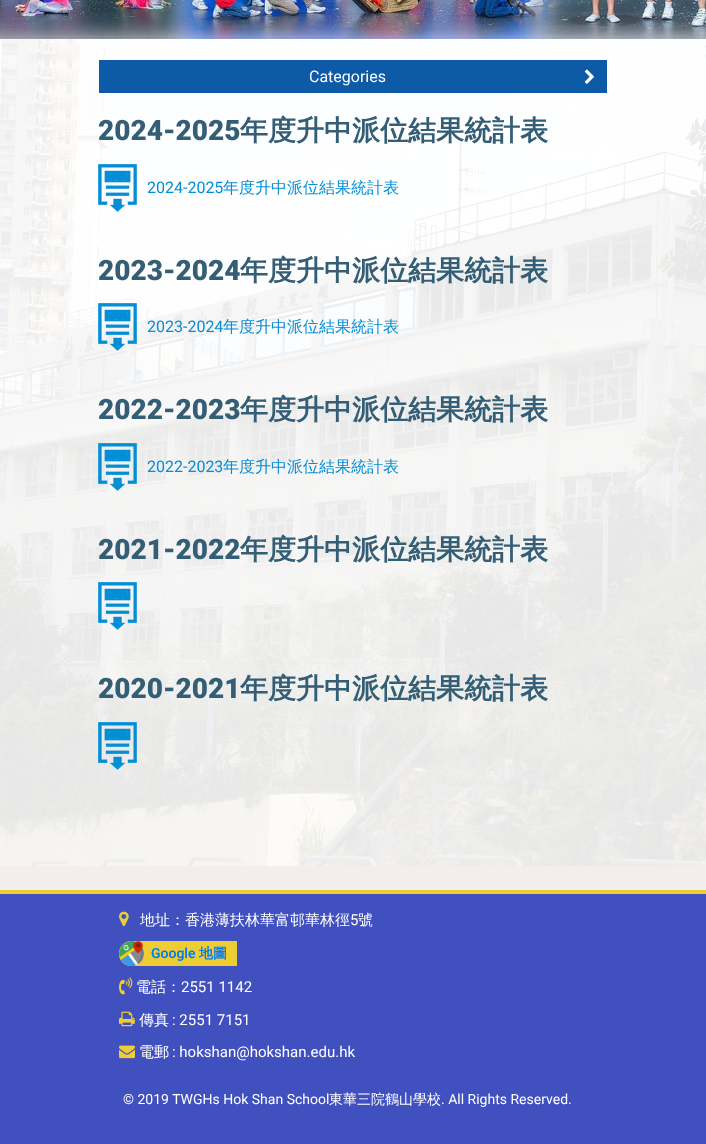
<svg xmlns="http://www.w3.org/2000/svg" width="706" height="1144">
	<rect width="100%" height="100%" fill="#F3EDED" />
	<image x="0" y="0" width="706" height="39" href="assets/img1.png" />
	<image x="0" y="39" width="706" height="827" href="assets/img2.png" />
	<rect x="98.5" y="59.5" width="509" height="34" fill="#0D5AA7" stroke="#FFFFFF" />
	<text x="309" y="82" font-family="Roboto" font-size="16" fill="#FFFFFF">Categories</text>
	<image x="584" y="69" width="10" height="15" href="assets/img3.png" />
	<text x="98" y="140" font-family="Roboto" font-size="28" font-weight="900" fill="#335E75">2024-2025</text>
	<text x="240" y="140" font-family="WenQuanYi Zen Hei" font-size="28" font-weight="700" fill="#335E75">年度升中派位結果統計表</text>
	<image x="98" y="164" width="39" height="48" href="assets/img4.png" />
	<text x="147" y="193" font-family="Roboto" font-size="16" fill="#048ED6">2024-2025</text>
	<text x="223" y="193" font-family="WenQuanYi Zen Hei" font-size="16" font-weight="500" fill="#048ED6">年度升中派位結果統計表</text>
	<text x="98" y="280" font-family="Roboto" font-size="28" font-weight="900" fill="#335E75">2023-2024</text>
	<text x="240" y="280" font-family="WenQuanYi Zen Hei" font-size="28" font-weight="700" fill="#335E75">年度升中派位結果統計表</text>
	<image x="98" y="303" width="39" height="48" href="assets/img5.png" />
	<text x="147" y="332" font-family="Roboto" font-size="16" fill="#048ED6">2023-2024</text>
	<text x="223" y="332" font-family="WenQuanYi Zen Hei" font-size="16" font-weight="500" fill="#048ED6">年度升中派位結果統計表</text>
	<text x="98" y="419" font-family="Roboto" font-size="28" font-weight="900" fill="#335E75">2022-2023</text>
	<text x="240" y="419" font-family="WenQuanYi Zen Hei" font-size="28" font-weight="700" fill="#335E75">年度升中派位結果統計表</text>
	<image x="98" y="443" width="39" height="48" href="assets/img6.png" />
	<text x="147" y="472" font-family="Roboto" font-size="16" fill="#048ED6">2022-2023</text>
	<text x="223" y="472" font-family="WenQuanYi Zen Hei" font-size="16" font-weight="500" fill="#048ED6">年度升中派位結果統計表</text>
	<text x="98" y="559" font-family="Roboto" font-size="28" font-weight="900" fill="#335E75">2021-2022</text>
	<text x="240" y="559" font-family="WenQuanYi Zen Hei" font-size="28" font-weight="700" fill="#335E75">年度升中派位結果統計表</text>
	<image x="98" y="582" width="39" height="48" href="assets/img7.png" />
	<text x="98" y="698" font-family="Roboto" font-size="28" font-weight="900" fill="#335E75">2020-2021</text>
	<text x="240" y="698" font-family="WenQuanYi Zen Hei" font-size="28" font-weight="700" fill="#335E75">年度升中派位結果統計表</text>
	<image x="98" y="722" width="39" height="48" href="assets/img8.png" />
	<rect x="0" y="894" width="706" height="250" fill="#4050BF" />
	<rect x="0" y="890" width="706" height="4" fill="#EECD34" />
	<image x="119" y="911" width="10" height="16" href="assets/img9.png" />
	<text x="140" y="925" font-family="WenQuanYi Zen Hei" font-size="15" font-weight="500" fill="#FFFFFF">地址：香港薄扶林華富邨華林徑</text>
	<text x="350" y="925" font-family="Roboto" font-size="15" fill="#FFFFFF">5</text>
	<text x="358" y="925" font-family="WenQuanYi Zen Hei" font-size="15" font-weight="500" fill="#FFFFFF">號</text>
	<path d="M131.5 941H237V966H131.5C124.5 966 119 960.5 119 953.5C119 946.5 124.5 941 131.5 941Z" fill="#EECD34" />
	<image x="119" y="941" width="25" height="25" href="assets/img10.png" />
	<text x="151" y="958" font-family="Roboto" font-size="14" font-weight="600" fill="#007BFF">Google</text>
	<text x="199" y="958" font-family="WenQuanYi Zen Hei" font-size="14" font-weight="700" fill="#007BFF">地圖</text>
	<image x="119" y="977" width="14" height="18" href="assets/img11.png" />
	<text x="136" y="992" font-family="WenQuanYi Zen Hei" font-size="15" font-weight="500" fill="#FFFFFF">電話：</text>
	<text x="181" y="992" font-family="Roboto" font-size="15" fill="#FFFFFF">2551 1142</text>
	<image x="119" y="1011" width="16" height="16" href="assets/img12.png" />
	<text x="139" y="1025" font-family="WenQuanYi Zen Hei" font-size="15" font-weight="500" fill="#FFFFFF">傳真</text>
	<text x="172" y="1025" font-family="Roboto" font-size="15" fill="#FFFFFF">: 2551 7151</text>
	<image x="119" y="1045" width="16" height="14" href="assets/img13.png" />
	<text x="139" y="1057" font-family="WenQuanYi Zen Hei" font-size="15" font-weight="500" fill="#FFFFFF">電郵</text>
	<text x="172" y="1057" font-family="Roboto" font-size="15" fill="#FFFFFF">: hokshan@hokshan.edu.hk</text>
	<text x="123" y="1104" font-family="Roboto" font-size="14" fill="#FFFFFF">© 2019 TWGHs Hok Shan School</text>
	<text x="329" y="1104" font-family="WenQuanYi Zen Hei" font-size="14" font-weight="500" fill="#FFFFFF">東華三院鶴山學校</text>
	<text x="441" y="1104" font-family="Roboto" font-size="14" fill="#FFFFFF">. All Rights Reserved.</text>
</svg>
